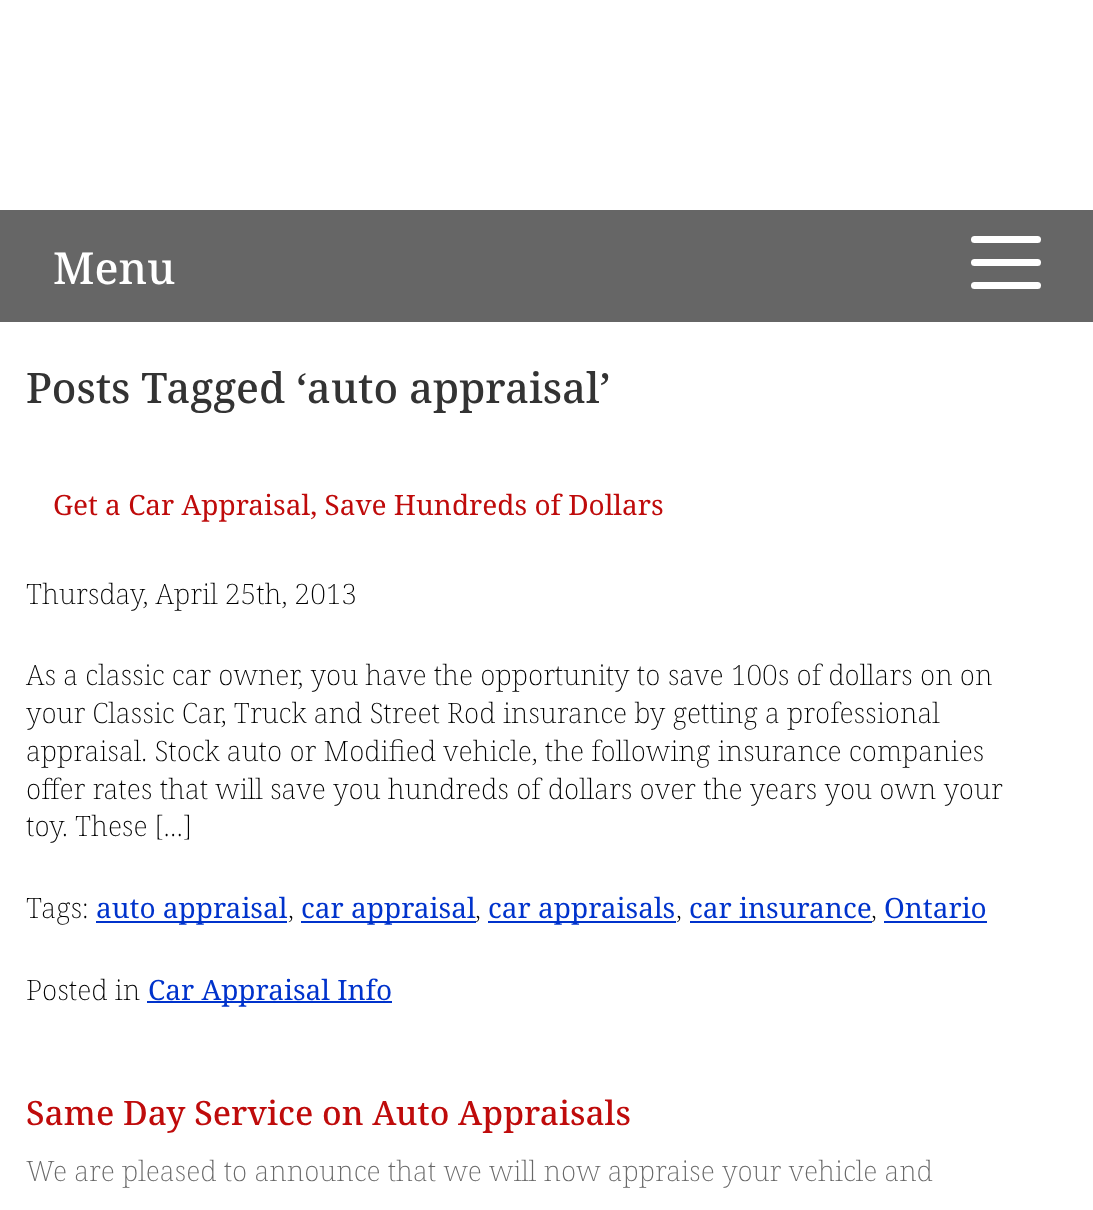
<svg xmlns="http://www.w3.org/2000/svg" width="1093" height="1210">
	<rect width="100%" height="100%" fill="#FFFFFF" />
	<rect x="0" y="210" width="1093" height="112" fill="#666666" />
	<text x="53" y="284" font-family="Noto Serif" font-size="44" font-weight="500" fill="#FFFFFF">Menu</text>
	<rect x="971" y="236" width="70" height="7" rx="3.5" fill="#FFFFFF" />
	<rect x="971" y="259" width="70" height="7" rx="3.5" fill="#FFFFFF" />
	<rect x="971" y="282" width="70" height="7" rx="3.5" fill="#FFFFFF" />
	<text x="26" y="403" font-family="Noto Serif" font-size="42" font-weight="500" fill="#333333">Posts Tagged ‘auto appraisal’</text>
	<text x="53" y="515" font-family="Noto Serif" font-size="28" fill="#BF0B0B">Get a Car Appraisal, Save Hundreds of Dollars</text>
	<g font-family="Noto Serif" font-size="28" font-weight="200" fill="#000000">
		<text x="26" y="604">Thursday, April 25th, 2013</text>
		<text x="26" y="685">As a classic car owner, you have the opportunity to save 100s of dollars on on</text>
		<text x="26" y="723">your Classic Car, Truck and Street Rod insurance by getting a professional</text>
		<text x="26" y="761">appraisal. Stock auto or Modified vehicle, the following insurance companies</text>
		<text x="26" y="799">offer rates that will save you hundreds of dollars over the years you own your</text>
		<text x="26" y="836">toy. These […]</text>
		<text x="26" y="918">Tags:</text>
	</g>
	<rect x="96" y="921" width="191" height="2" fill="#0033CC" />
	<text x="96" y="918" font-family="Noto Serif" font-size="28" fill="#0033CC">auto appraisal</text>
	<text x="288" y="918" font-family="Noto Serif" font-size="28" font-weight="200" fill="#000000">,</text>
	<rect x="301" y="921" width="175" height="2" fill="#0033CC" />
	<text x="301" y="918" font-family="Noto Serif" font-size="28" fill="#0033CC">car appraisal</text>
	<text x="475" y="918" font-family="Noto Serif" font-size="28" font-weight="200" fill="#000000">,</text>
	<rect x="488" y="921" width="188" height="2" fill="#0033CC" />
	<text x="488" y="918" font-family="Noto Serif" font-size="28" fill="#0033CC">car appraisals</text>
	<text x="676" y="918" font-family="Noto Serif" font-size="28" font-weight="200" fill="#000000">,</text>
	<text x="689" y="918" font-family="Noto Serif" font-size="28" fill="#0033CC">car insurance</text>
	<rect x="690" y="921" width="182" height="2" fill="#0033CC" />
	<text x="871" y="918" font-family="Noto Serif" font-size="28" font-weight="200" fill="#000000">,</text>
	<text x="884" y="918" font-family="Noto Serif" font-size="28" fill="#0033CC">Ontario</text>
	<rect x="884" y="921" width="103" height="2" fill="#0033CC" />
	<text x="26" y="1000" font-family="Noto Serif" font-size="28" font-weight="200" fill="#000000">Posted in</text>
	<rect x="147" y="1001" width="245" height="2" fill="#0033CC" />
	<text x="148" y="1000" font-family="Noto Serif" font-size="28" fill="#0033CC">Car Appraisal Info</text>
	<text x="26" y="1125" font-family="Noto Serif" font-size="33.6" font-weight="500" fill="#BF0B0B">Same Day Service on Auto Appraisals</text>
	<text x="26" y="1181" font-family="Noto Serif" font-size="28" font-weight="200" fill="#686868">We are pleased to announce that we will now appraise your vehicle and</text>
</svg>
